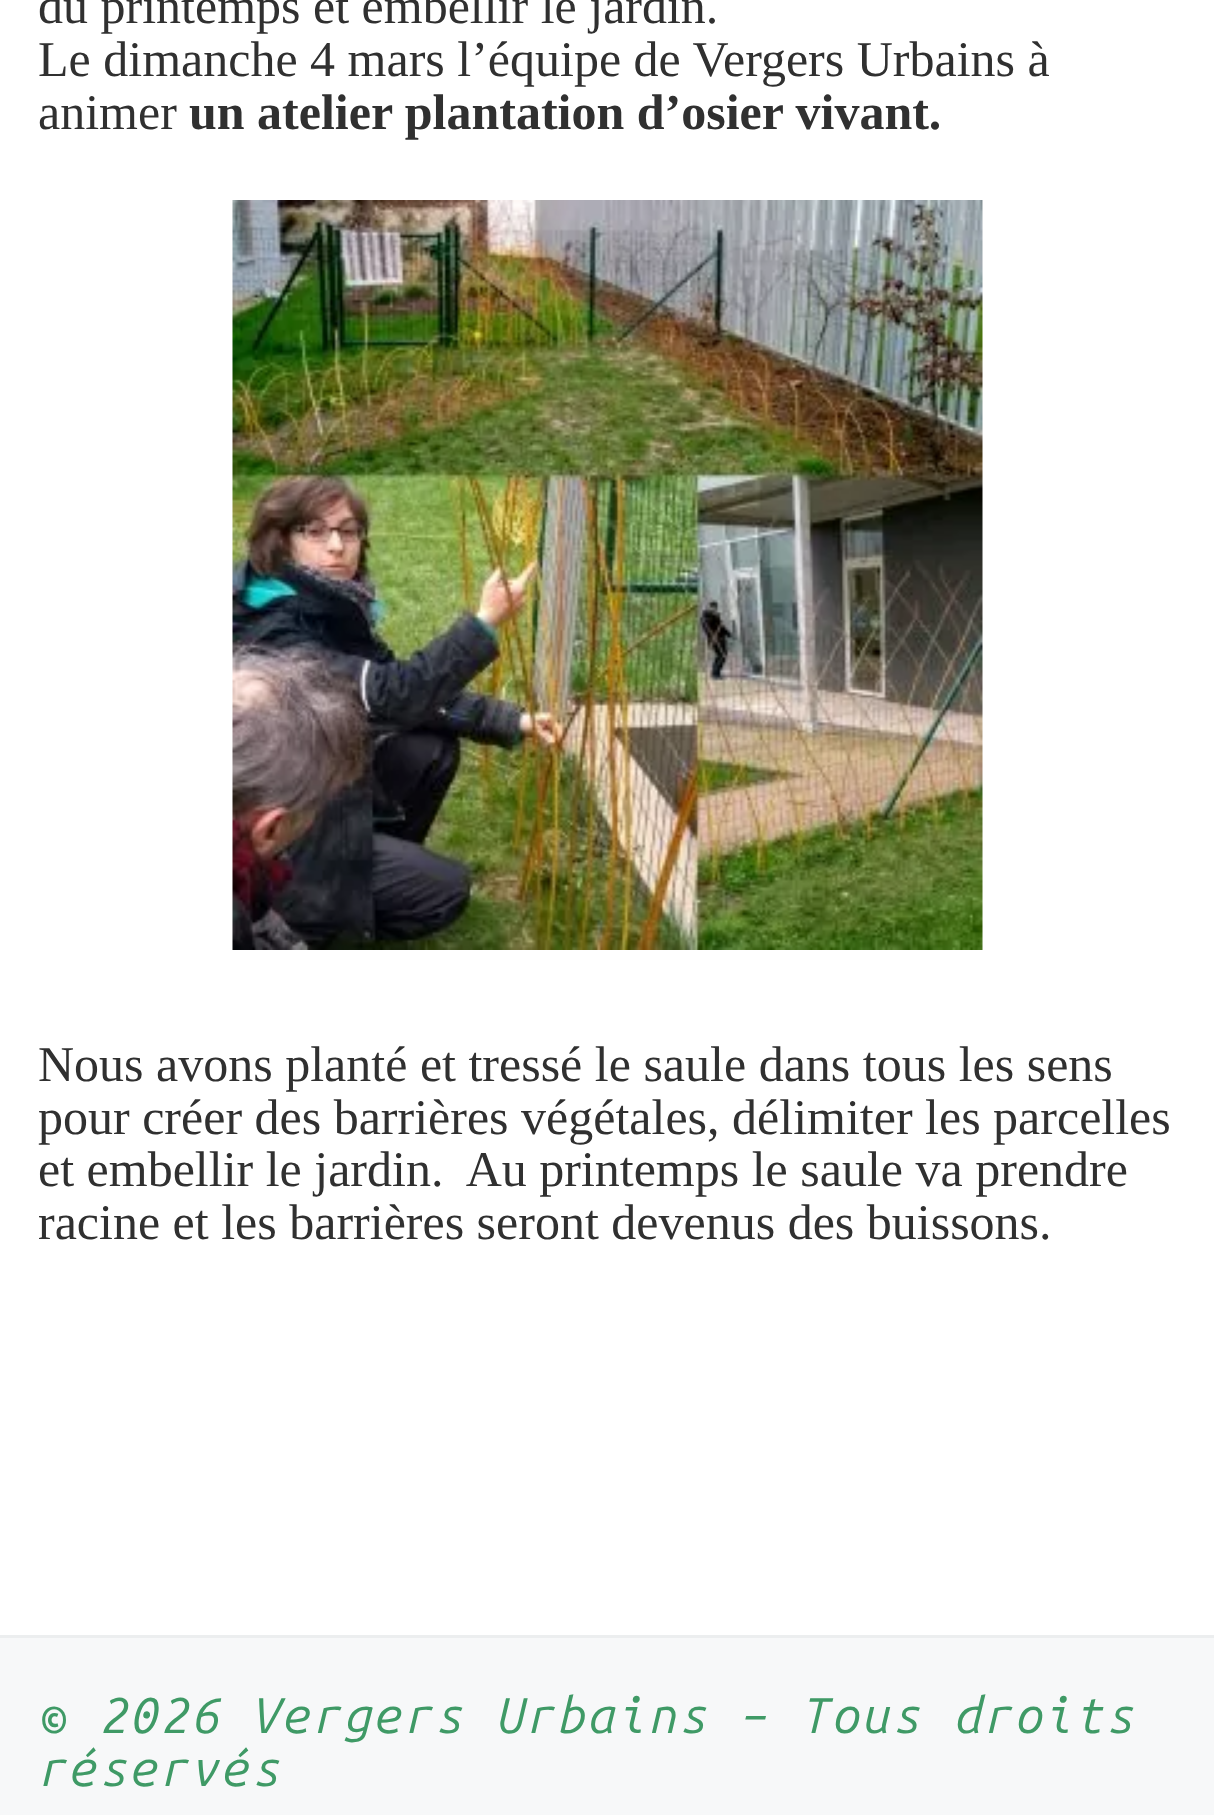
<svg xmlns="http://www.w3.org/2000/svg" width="1214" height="1815">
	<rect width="100%" height="100%" fill="#FFFFFF" />
	<g font-family="Liberation Serif" font-size="50" fill="#303030">
		<text x="38" y="23">du printemps et embellir le jardin.</text>
		<text x="38" y="76">Le dimanche 4 mars l’équipe de Vergers Urbains à</text>
		<text x="38" y="129">animer</text>
	</g>
	<text x="189" y="129" font-family="Liberation Serif" font-size="50" font-weight="700" fill="#303030">un atelier plantation d’osier vivant.</text>
	<image x="232" y="200" width="751" height="750" href="assets/img1.png" />
	<g font-family="Liberation Serif" font-size="50" fill="#303030">
		<text x="38" y="1081">Nous avons planté et tressé le saule dans tous les sens</text>
		<text x="38" y="1134">pour créer des barrières végétales, délimiter les parcelles</text>
		<text x="38" y="1186" xml:space="preserve">et embellir le jardin.  Au printemps le saule va prendre</text>
		<text x="38" y="1239">racine et les barrières seront devenus des buissons.</text>
	</g>
	<rect x="0" y="1635" width="1214" height="3" fill="#ECEEEF" />
	<rect x="0" y="1638" width="1214" height="177" fill="#F7F8F9" />
	<g font-family="Ubuntu Mono" font-size="50" font-style="italic" letter-spacing="2.5" fill="#3F9A66">
		<text x="38" y="1733">© 2026 Vergers Urbains – Tous droits</text>
		<text x="38" y="1786">réservés</text>
	</g>
</svg>
